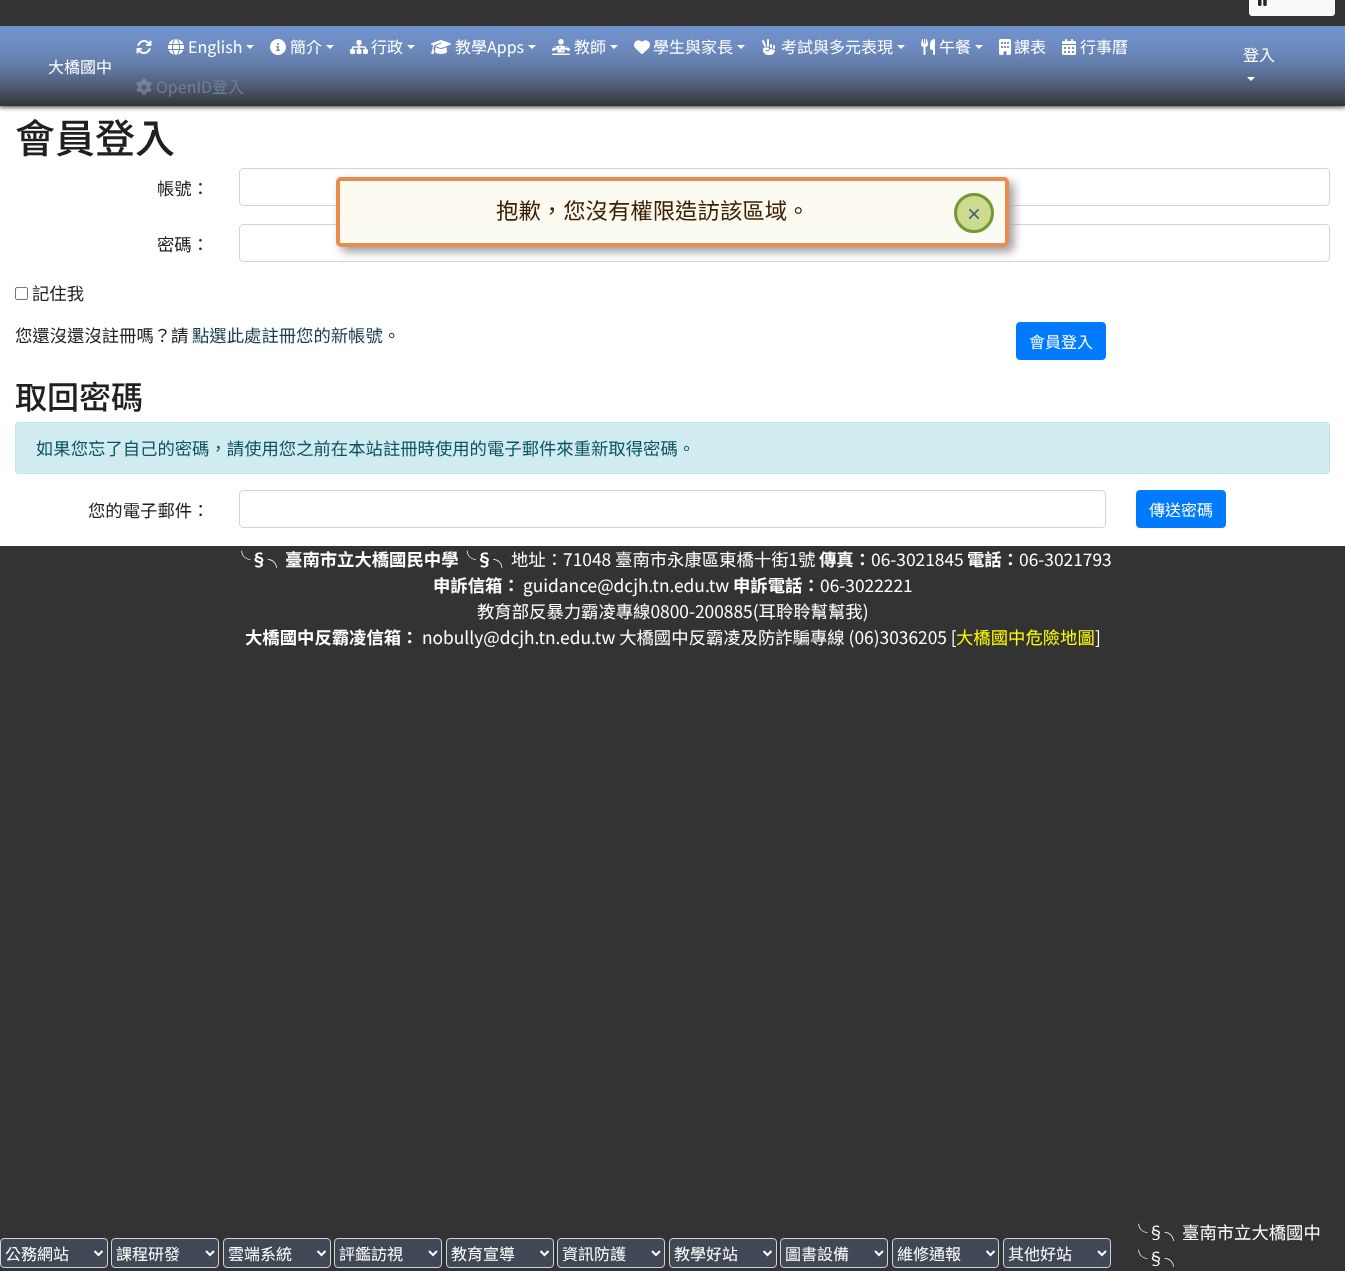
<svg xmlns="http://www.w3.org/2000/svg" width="1345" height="1271">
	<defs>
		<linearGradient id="g1" gradientUnits="userSpaceOnUse" x1="673" y1="26" x2="673" y2="106"><stop offset="0" stop-color="#7191CA" /><stop offset="1" stop-color="#333333" /></linearGradient>
		<clipPath id="clip1"><path d="M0 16H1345V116H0ZM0 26H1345V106H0Z" clip-rule="evenodd" /></clipPath>
		<linearGradient id="g2" gradientUnits="userSpaceOnUse" x1="673" y1="26" x2="673" y2="106"><stop offset="0" stop-color="#7191CA" /><stop offset="1" stop-color="#7191CA" stop-opacity="0" /></linearGradient>
	</defs>
	<rect width="100%" height="100%" fill="#333333" />
	<rect x="1249.5" y="-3.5" width="85" height="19" rx="2.5" fill="#F8F9FA" stroke="#F8F9FA" />
	<image x="1258" y="0" width="9" height="6" href="assets/img1.png" />
	<rect x="0" y="26" width="1345" height="79" fill="url(#g1)" />
	<rect x="0" y="106" width="1345" height="440" fill="#FFFFFF" />
	<g clip-path="url(#clip1)">
		<rect x="-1" y="25" width="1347" height="82" fill="#333333" filter="blur(2.5px)" />
	</g>
	<rect x="0" y="27" width="1345" height="77" fill="url(#g2)" />
	<text x="48" y="73" font-family="Noto Sans TC" font-size="16" fill="#FFFFFF">大橋國中</text>
	<image x="136" y="40" width="16" height="14" href="assets/img2.png" />
	<image x="168" y="39" width="16" height="16" href="assets/img3.png" />
	<text x="188" y="53" font-family="Noto Sans TC" font-size="16" fill="#FFFFFF">English</text>
	<path d="M246 45H254L250 49Z" fill="#FFFFFF" />
	<image x="270" y="39" width="16" height="16" href="assets/img4.png" />
	<text x="290" y="53" font-family="Noto Sans TC" font-size="16" fill="#FFFFFF">簡介</text>
	<path d="M326 45H334L330 49Z" fill="#FFFFFF" />
	<image x="350" y="40" width="18" height="14" href="assets/img5.png" />
	<text x="371" y="53" font-family="Noto Sans TC" font-size="16" fill="#FFFFFF">行政</text>
	<path d="M407 45H415L411 49Z" fill="#FFFFFF" />
	<image x="431" y="40" width="20" height="14" href="assets/img6.png" />
	<text x="455" y="53" font-family="Noto Sans TC" font-size="16" fill="#FFFFFF">教學Apps</text>
	<path d="M528 45H536L532 49Z" fill="#FFFFFF" />
	<image x="552" y="39" width="18" height="16" href="assets/img7.png" />
	<text x="574" y="53" font-family="Noto Sans TC" font-size="16" fill="#FFFFFF">教師</text>
	<path d="M610 45H618L614 49Z" fill="#FFFFFF" />
	<image x="634" y="40" width="16" height="14" href="assets/img8.png" />
	<text x="653" y="53" font-family="Noto Sans TC" font-size="16" fill="#FFFFFF">學生與家長</text>
	<path d="M737 45H745L741 49Z" fill="#FFFFFF" />
	<image x="762" y="39" width="13" height="16" href="assets/img9.png" />
	<text x="781" y="53" font-family="Noto Sans TC" font-size="16" fill="#FFFFFF">考試與多元表現</text>
	<path d="M897 45H905L901 49Z" fill="#FFFFFF" />
	<image x="921" y="39" width="14" height="16" href="assets/img10.png" />
	<text x="939" y="53" font-family="Noto Sans TC" font-size="16" fill="#FFFFFF">午餐</text>
	<path d="M975 45H983L979 49Z" fill="#FFFFFF" />
	<image x="999" y="39" width="12" height="16" href="assets/img11.png" />
	<text x="1014" y="53" font-family="Noto Sans TC" font-size="16" fill="#FFFFFF">課表</text>
	<image x="1062" y="39" width="14" height="16" href="assets/img12.png" />
	<text x="1080" y="53" font-family="Noto Sans TC" font-size="16" fill="#FFFFFF">行事曆</text>
	<image x="136" y="79" width="16" height="16" href="assets/img13.png" />
	<text x="156" y="93" font-family="Noto Sans TC" font-size="16" fill="#737D8F">OpenID登入</text>
	<text x="1243" y="61" font-family="Noto Sans TC" font-size="16" fill="#FFFFFF">登入</text>
	<path d="M1247 77H1255L1251 81Z" fill="#FFFFFF" />
	<text x="15" y="153" font-family="Noto Sans TC" font-size="40" font-weight="500" fill="#202020">會員登入</text>
	<text x="157" y="195" font-family="Noto Sans TC" font-size="17.35" fill="#202020">帳號：</text>
	<rect x="239.5" y="168.5" width="1090" height="37" rx="3.5" fill="none" stroke="#CED4DA" />
	<text x="157" y="251" font-family="Noto Sans TC" font-size="17.35" fill="#202020">密碼：</text>
	<rect x="239.5" y="224.5" width="1090" height="37" rx="3.5" fill="none" stroke="#CED4DA" />
	<rect x="15.5" y="287.5" width="12" height="12" rx="1.5" fill="none" stroke="#767676" />
	<g font-family="Noto Sans TC" font-size="17.35" fill="#202020">
		<text x="32" y="300">記住我</text>
		<text x="15" y="342">您還沒還沒註冊嗎？請</text>
	</g>
	<text x="192" y="342" font-family="Noto Sans TC" font-size="17.35" fill="#143C4B">點選此處註冊您的新帳號</text>
	<text x="383" y="342" font-family="Noto Sans TC" font-size="17.35" fill="#202020">。</text>
	<rect x="1016.5" y="322.5" width="89" height="37" rx="3.5" fill="#007BFF" stroke="#007BFF" />
	<text x="1029" y="348" font-family="Noto Sans TC" font-size="16" fill="#FFFFFF">會員登入</text>
	<text x="15" y="409" font-family="Noto Sans TC" font-size="32" font-weight="500" fill="#202020">取回密碼</text>
	<rect x="15.5" y="422.5" width="1314" height="51" rx="3.5" fill="#D1ECF1" stroke="#BEE5EB" />
	<text x="36" y="455" font-family="Noto Sans TC" font-size="17.35" fill="#0C5460">如果您忘了自己的密碼，請使用您之前在本站註冊時使用的電子郵件來重新取得密碼。</text>
	<text x="88" y="517" font-family="Noto Sans TC" font-size="17.35" fill="#202020">您的電子郵件：</text>
	<rect x="239.5" y="490.5" width="866" height="37" rx="3.5" fill="none" stroke="#CED4DA" />
	<rect x="1136.5" y="490.5" width="89" height="37" rx="3.5" fill="#007BFF" stroke="#007BFF" />
	<text x="1149" y="516" font-family="Noto Sans TC" font-size="16" fill="#FFFFFF">傳送密碼</text>
	<rect x="341" y="182" width="673" height="70" rx="5" fill="#9E9E9E" filter="blur(5px)" />
	<image x="336" y="177" width="673" height="70" href="assets/img14.png" />
	<rect x="338" y="179" width="669" height="66" rx="3" fill="none" stroke="#E98C4D" stroke-width="4" />
	<text x="496" y="219" font-family="Noto Sans TC" font-size="22.4" fill="#3B2001">抱歉，您沒有權限造訪該區域。</text>
	<circle cx="974" cy="213" r="18.5" fill="#CEDA8F" stroke="#729932" stroke-width="3" />
	<text x="966" y="220" font-family="Noto Sans TC" font-size="16" font-weight="700" fill="#405A80">×</text>
	<text x="233" y="566" font-family="Noto Sans TC" font-size="17.35" font-weight="700" fill="#FFFFFF">╰§╮臺南市立大橋國民中學╰§╮</text>
	<text x="511" y="566" font-family="Noto Sans TC" font-size="17.35" fill="#FFFFFF">地址：71048 臺南市永康區東橋十街1號</text>
	<text x="819" y="566" font-family="Noto Sans TC" font-size="17.35" font-weight="700" fill="#FFFFFF">傳真：</text>
	<text x="871" y="566" font-family="Noto Sans TC" font-size="17.35" fill="#FFFFFF">06-3021845</text>
	<text x="967" y="566" font-family="Noto Sans TC" font-size="17.35" font-weight="700" fill="#FFFFFF">電話：</text>
	<text x="1019" y="566" font-family="Noto Sans TC" font-size="17.35" fill="#FFFFFF">06-3021793</text>
	<text x="433" y="592" font-family="Noto Sans TC" font-size="17.35" font-weight="700" fill="#FFFFFF">申訴信箱：</text>
	<text x="523" y="592" font-family="Noto Sans TC" font-size="17.35" fill="#FFFFFF">guidance@dcjh.tn.edu.tw</text>
	<text x="733" y="592" font-family="Noto Sans TC" font-size="17.35" font-weight="700" fill="#FFFFFF">申訴電話：</text>
	<g font-family="Noto Sans TC" font-size="17.35" fill="#FFFFFF">
		<text x="820" y="592">06-3022221</text>
		<text x="477" y="618">教育部反暴力霸凌專線0800-200885(耳聆聆幫幫我)</text>
	</g>
	<text x="245" y="644" font-family="Noto Sans TC" font-size="17.35" font-weight="700" fill="#FFFFFF">大橋國中反霸凌信箱：</text>
	<text x="422" y="644" font-family="Noto Sans TC" font-size="17.35" fill="#FFFFFF">nobully@dcjh.tn.edu.tw 大橋國中反霸凌及防詐騙專線 (06)3036205 [</text>
	<text x="956" y="644" font-family="Noto Sans TC" font-size="17.35" fill="#FFFF00">大橋國中危險地圖</text>
	<text x="1095" y="644" font-family="Noto Sans TC" font-size="17.35" fill="#FFFFFF">]</text>
	<rect x="0.5" y="1238.5" width="107" height="29" rx="3.5" fill="#414855" stroke="#CED4DA" />
	<path d="M94.5 1251L98.5 1255L102.5 1251" fill="none" stroke="#FFFFFF" stroke-width="2" />
	<text x="5" y="1260" font-family="Noto Sans TC" font-size="16" fill="#FFFFFF">公務網站</text>
	<rect x="111.5" y="1238.5" width="107" height="29" rx="3.5" fill="#414855" stroke="#CED4DA" />
	<path d="M206 1251L210 1255L214 1251" fill="none" stroke="#FFFFFF" stroke-width="2" />
	<text x="116" y="1260" font-family="Noto Sans TC" font-size="16" fill="#FFFFFF">課程研發</text>
	<rect x="223.5" y="1238.5" width="107" height="29" rx="3.5" fill="#414855" stroke="#CED4DA" />
	<path d="M317.5 1251L321.5 1255L325.5 1251" fill="none" stroke="#FFFFFF" stroke-width="2" />
	<text x="228" y="1260" font-family="Noto Sans TC" font-size="16" fill="#FFFFFF">雲端系統</text>
	<rect x="334.5" y="1238.5" width="107" height="29" rx="3.5" fill="#414855" stroke="#CED4DA" />
	<path d="M429 1251L433 1255L437 1251" fill="none" stroke="#FFFFFF" stroke-width="2" />
	<text x="339" y="1260" font-family="Noto Sans TC" font-size="16" fill="#FFFFFF">評鑑訪視</text>
	<rect x="446.5" y="1238.5" width="107" height="29" rx="3.5" fill="#414855" stroke="#CED4DA" />
	<path d="M540.5 1251L544.5 1255L548.5 1251" fill="none" stroke="#FFFFFF" stroke-width="2" />
	<text x="451" y="1260" font-family="Noto Sans TC" font-size="16" fill="#FFFFFF">教育宣導</text>
	<rect x="557.5" y="1238.5" width="107" height="29" rx="3.5" fill="#414855" stroke="#CED4DA" />
	<path d="M652 1251L656 1255L660 1251" fill="none" stroke="#FFFFFF" stroke-width="2" />
	<text x="562" y="1260" font-family="Noto Sans TC" font-size="16" fill="#FFFFFF">資訊防護</text>
	<rect x="669.5" y="1238.5" width="107" height="29" rx="3.5" fill="#414855" stroke="#CED4DA" />
	<path d="M763.5 1251L767.5 1255L771.5 1251" fill="none" stroke="#FFFFFF" stroke-width="2" />
	<text x="674" y="1260" font-family="Noto Sans TC" font-size="16" fill="#FFFFFF">教學好站</text>
	<rect x="780.5" y="1238.5" width="107" height="29" rx="3.5" fill="#414855" stroke="#CED4DA" />
	<path d="M875 1251L879 1255L883 1251" fill="none" stroke="#FFFFFF" stroke-width="2" />
	<text x="785" y="1260" font-family="Noto Sans TC" font-size="16" fill="#FFFFFF">圖書設備</text>
	<rect x="892.5" y="1238.5" width="106" height="29" rx="3.5" fill="#414855" stroke="#CED4DA" />
	<path d="M986.5 1251L990.5 1255L994.5 1251" fill="none" stroke="#FFFFFF" stroke-width="2" />
	<text x="897" y="1260" font-family="Noto Sans TC" font-size="16" fill="#FFFFFF">維修通報</text>
	<rect x="1003.5" y="1238.5" width="107" height="29" rx="3.5" fill="#414855" stroke="#CED4DA" />
	<path d="M1098 1251L1102 1255L1106 1251" fill="none" stroke="#FFFFFF" stroke-width="2" />
	<text x="1008" y="1260" font-family="Noto Sans TC" font-size="16" fill="#FFFFFF">其他好站</text>
	<g font-family="Noto Sans TC" font-size="17.35" fill="#FFFFFF">
		<text x="1130" y="1239">╰§╮臺南市立大橋國中</text>
		<text x="1130" y="1265">╰§╮</text>
	</g>
</svg>
